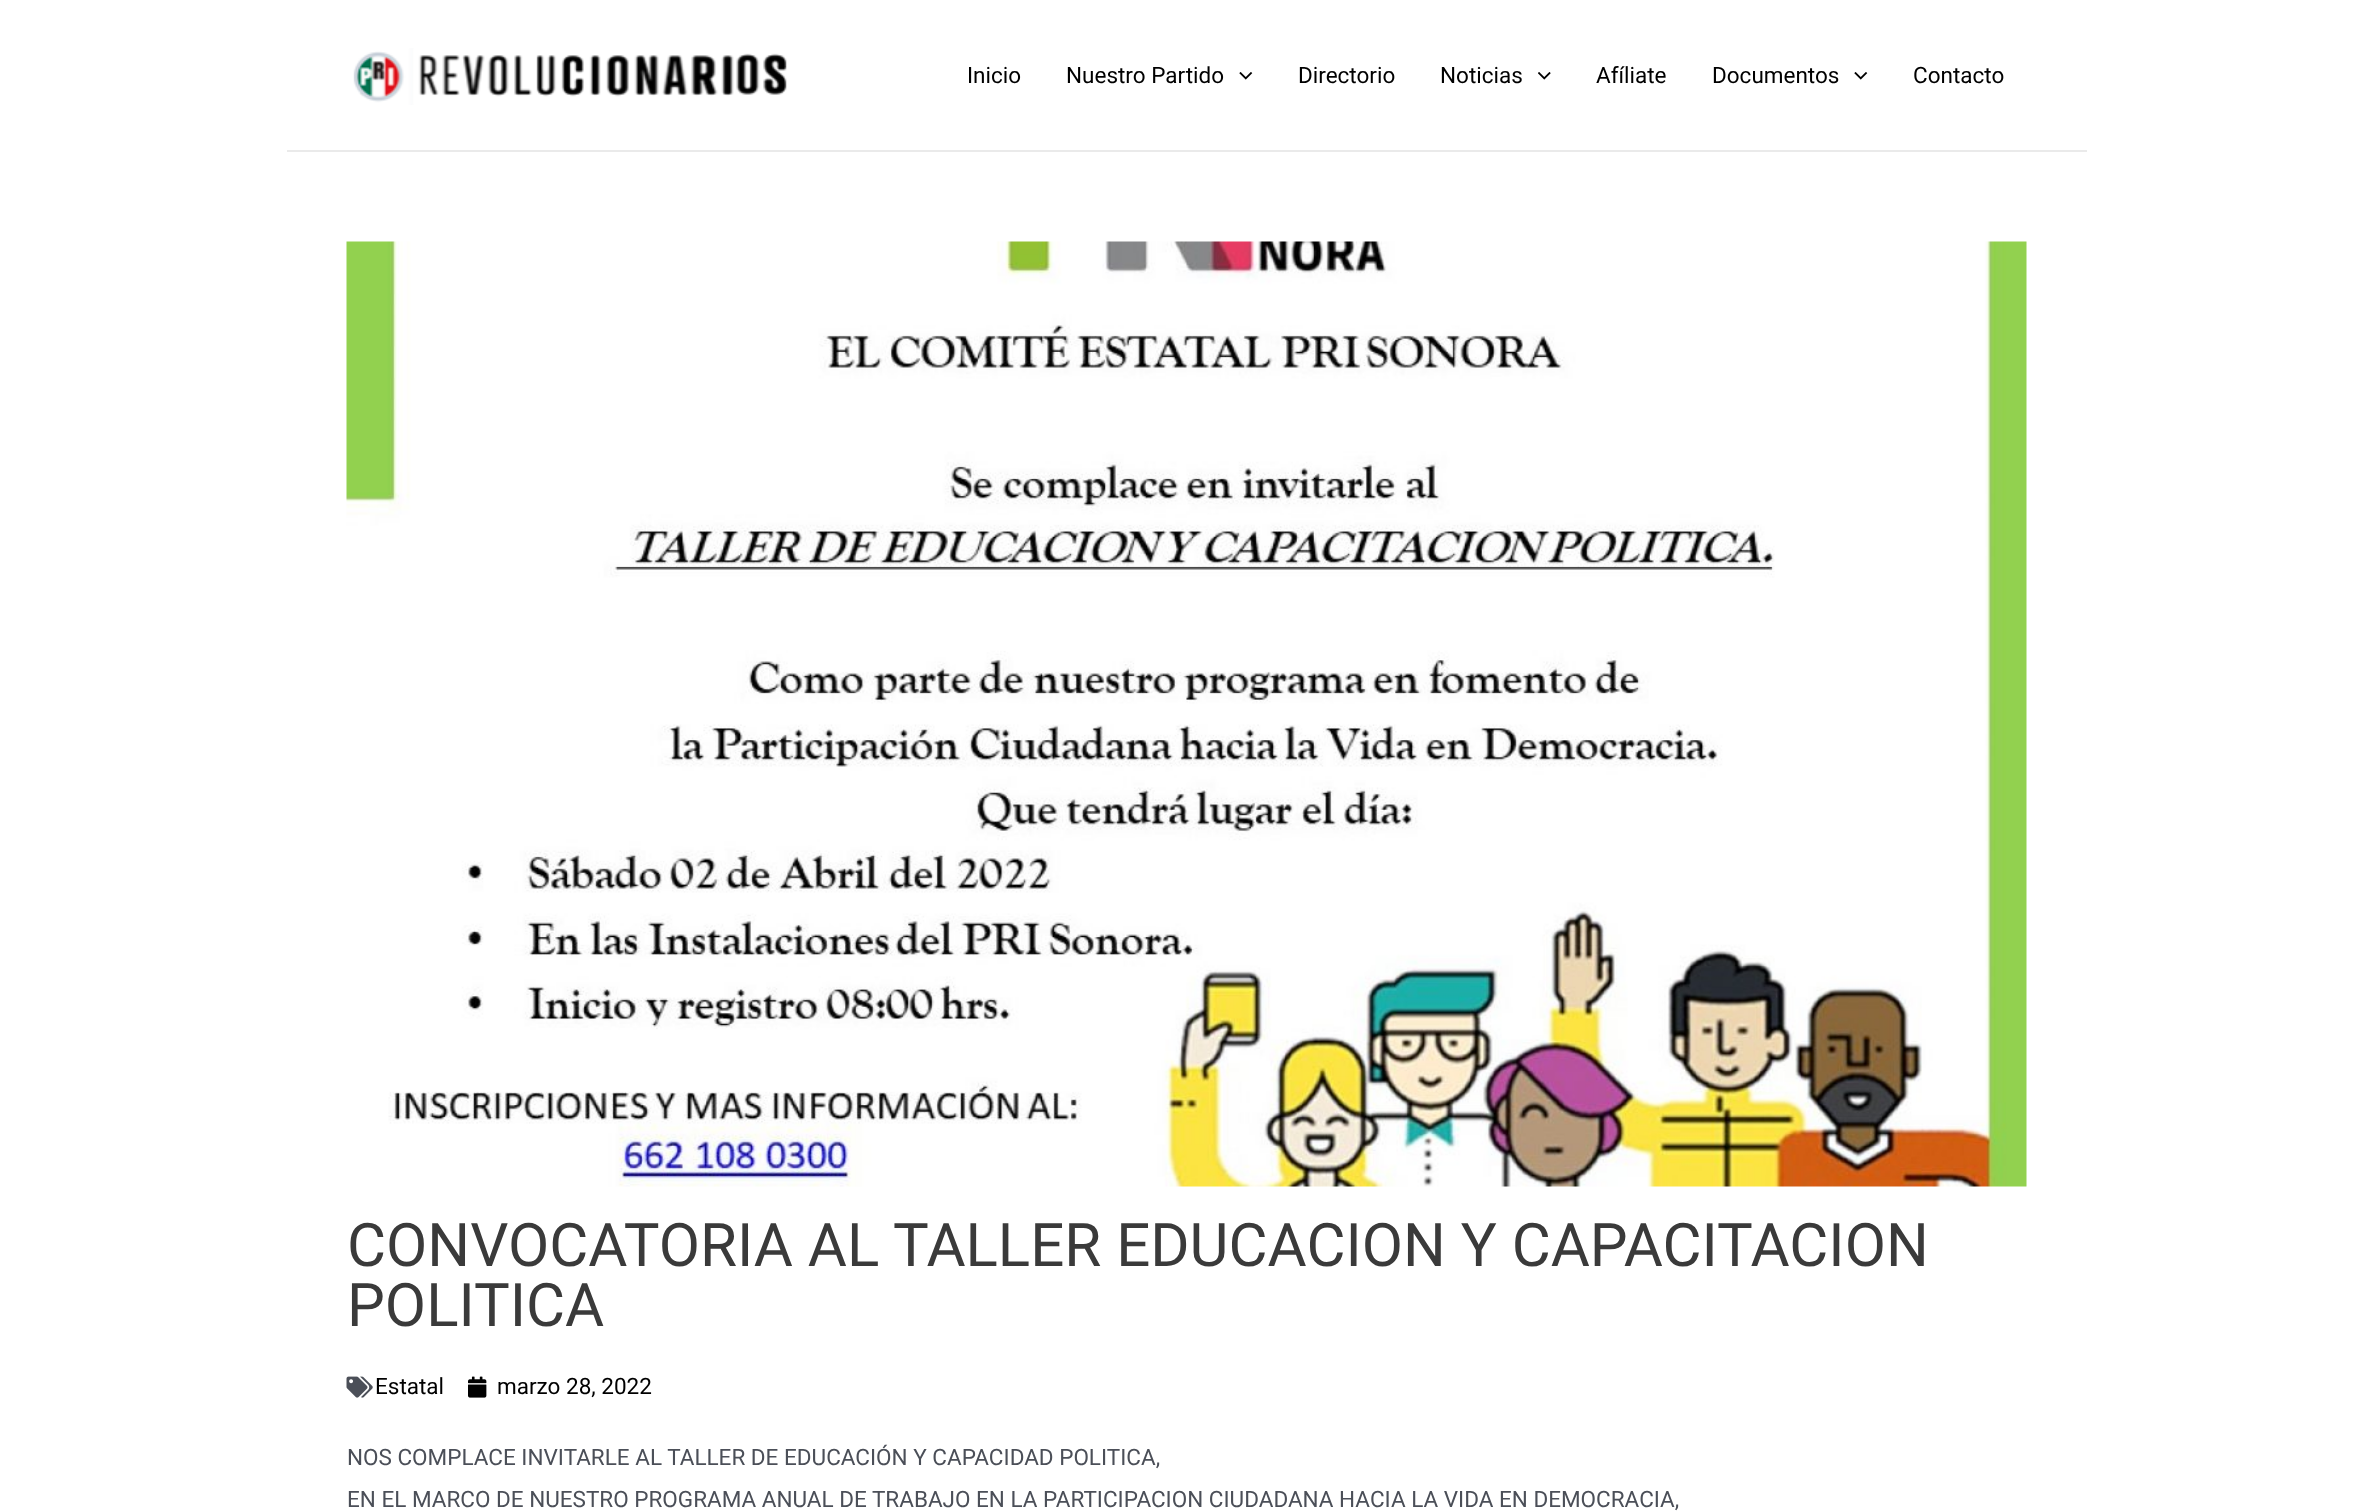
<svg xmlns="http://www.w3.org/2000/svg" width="2373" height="1511">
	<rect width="100%" height="100%" fill="#FFFFFF" />
	<rect x="287" y="150" width="1800" height="2" fill="#EAEAEA" />
	<image x="353" y="48" width="434" height="57" href="assets/img1.png" />
	<g font-family="Roboto" font-size="22.5" fill="#000000">
		<text x="967" y="83">Inicio</text>
		<text x="1066" y="83">Nuestro Partido</text>
	</g>
	<image x="1239" y="72" width="14" height="8" href="assets/img2.png" />
	<g font-family="Roboto" font-size="22.5" fill="#000000">
		<text x="1298" y="83">Directorio</text>
		<text x="1440" y="83">Noticias</text>
	</g>
	<image x="1538" y="72" width="13" height="8" href="assets/img3.png" />
	<g font-family="Roboto" font-size="22.5" fill="#000000">
		<text x="1596" y="83">Afíliate</text>
		<text x="1712" y="83">Documentos</text>
	</g>
	<image x="1854" y="72" width="14" height="8" href="assets/img2.png" />
	<text x="1913" y="83" font-family="Roboto" font-size="22.5" fill="#000000">Contacto</text>
	<image x="346" y="241" width="1681" height="946" href="assets/img4.png" />
	<g font-family="Roboto" font-size="60" fill="#3A3A3A">
		<text x="347" y="1266">CONVOCATORIA AL TALLER EDUCACION Y CAPACITACION</text>
		<text x="347" y="1326">POLITICA</text>
	</g>
	<image x="346" y="1376" width="27" height="22" href="assets/img5.png" />
	<text x="375" y="1394" font-family="Roboto" font-size="22.5" fill="#000000">Estatal</text>
	<image x="468" y="1376" width="19" height="22" href="assets/img6.png" />
	<text x="497" y="1394" font-family="Roboto" font-size="22.5" fill="#000000">marzo 28, 2022</text>
	<g font-family="Roboto" font-size="22.5" fill="#4B4F58">
		<text x="347" y="1465">NOS COMPLACE INVITARLE AL TALLER DE EDUCACIÓN Y CAPACIDAD POLITICA,</text>
		<text x="347" y="1507">EN EL MARCO DE NUESTRO PROGRAMA ANUAL DE TRABAJO EN LA PARTICIPACION CIUDADANA HACIA LA VIDA EN DEMOCRACIA,</text>
	</g>
</svg>
